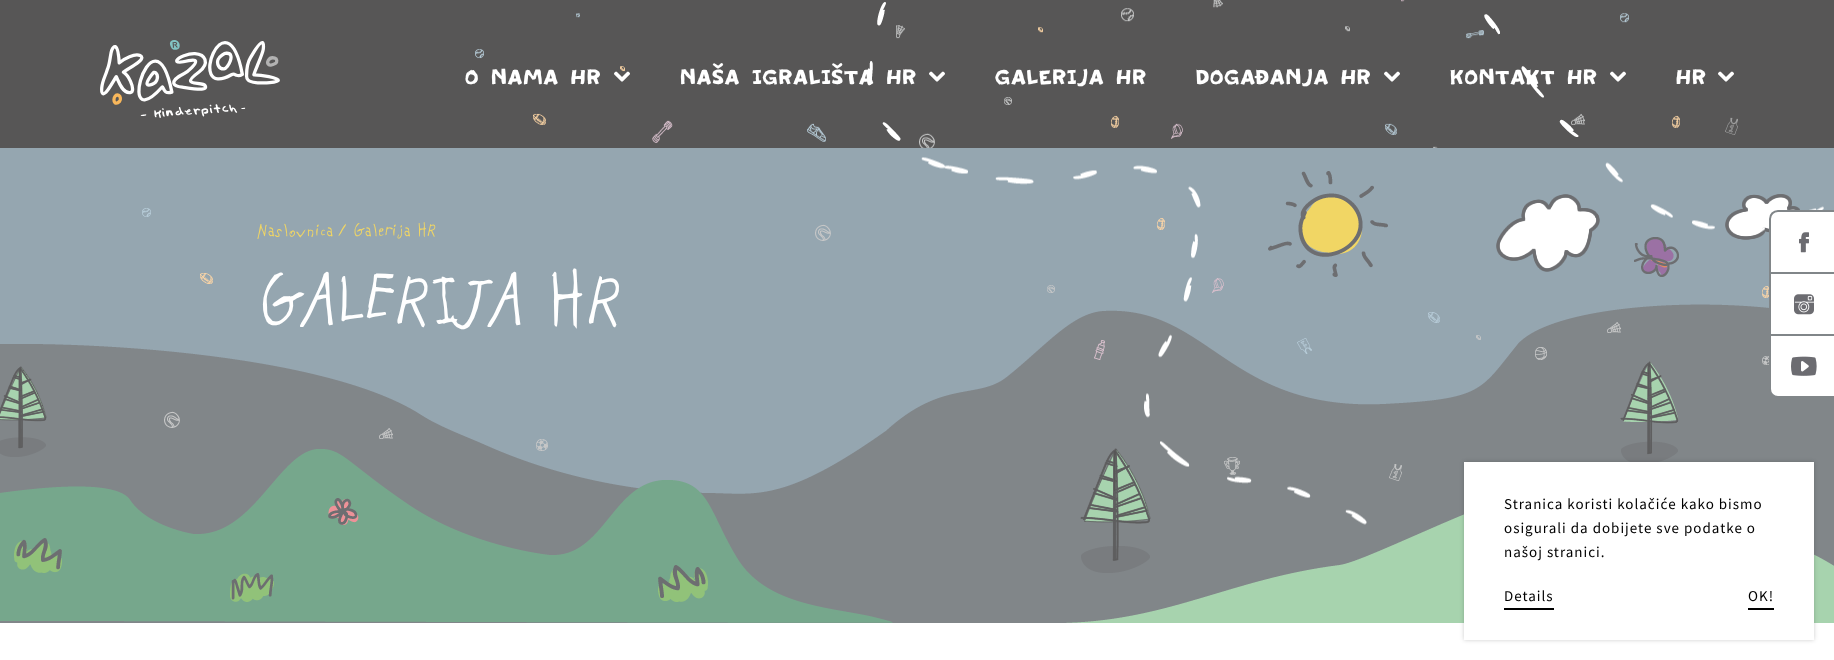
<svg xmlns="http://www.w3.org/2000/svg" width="1834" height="660">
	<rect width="100%" height="100%" fill="#FFFFFF" />
	<rect x="0" y="0" width="1834" height="148" fill="#575656" />
	<image x="475" y="0" width="1263" height="148" href="assets/img1.png" />
	<image x="100" y="40" width="180" height="78" href="assets/img2.png" />
	<image x="866" y="2" width="713" height="139" href="assets/img3.png" />
	<text x="465" y="84" font-family="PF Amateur" font-size="28" letter-spacing="1" fill="#FFFFFF">O NAMA HR</text>
	<image x="614" y="71" width="16" height="11" href="assets/img4.png" />
	<text x="680" y="84" font-family="PF Amateur" font-size="28" letter-spacing="1" fill="#FFFFFF">NAŠA IGRALIŠTA HR</text>
	<image x="929" y="71" width="16" height="11" href="assets/img5.png" />
	<g font-family="PF Amateur" font-size="28" letter-spacing="1" fill="#FFFFFF">
		<text x="995" y="84">GALERIJA HR</text>
		<text x="1196" y="84">DOGAĐANJA HR</text>
	</g>
	<image x="1384" y="71" width="16" height="11" href="assets/img5.png" />
	<text x="1450" y="84" font-family="PF Amateur" font-size="28" letter-spacing="1" fill="#FFFFFF">KONTAKT HR</text>
	<image x="1610" y="71" width="16" height="11" href="assets/img5.png" />
	<text x="1676" y="84" font-family="PF Amateur" font-size="28" letter-spacing="1" fill="#FFFFFF">HR</text>
	<image x="1718" y="71" width="16" height="11" href="assets/img5.png" />
	<rect x="0" y="148" width="1834" height="346" fill="#95A6B0" />
	<image x="0" y="171" width="1834" height="452" href="assets/img6.png" />
	<g font-family="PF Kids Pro" font-size="20" fill="#F1D664">
		<text x="257" y="236">Naslovnica</text>
		<text x="338" y="236">/</text>
		<text x="353" y="236">Galerija HR</text>
	</g>
	<text x="257" y="324" font-family="PF Kids Pro" font-size="80" fill="#FFFFFF">GALERIJA HR</text>
	<image x="921" y="157" width="903" height="368" href="assets/img7.png" />
	<path d="M1778 211H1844V273H1770V219C1770 214.5 1773.5 211 1778 211Z" fill="#FFFFFF" stroke="#818689" stroke-width="2" />
	<image x="1799" y="232" width="10" height="21" href="assets/img8.png" />
	<rect x="1770" y="273" width="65" height="62" fill="#FFFFFF" stroke="#818689" stroke-width="2" />
	<image x="1794" y="294" width="20" height="21" href="assets/img9.png" />
	<path d="M1770 335H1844V397H1778C1773.5 397 1770 393.5 1770 389Z" fill="#FFFFFF" stroke="#818689" stroke-width="2" />
	<image x="1791" y="356" width="26" height="20" href="assets/img10.png" />
	<rect x="1464" y="462" width="350" height="178" fill="#000000" fill-opacity="0.2" filter="blur(2px)" />
	<rect x="1464" y="462" width="350" height="178" fill="#FFFFFF" />
	<g font-family="Source Sans Pro" font-size="15" letter-spacing="1" fill="#000000">
		<text x="1504" y="509">Stranica koristi kolačiće kako bismo</text>
		<text x="1504" y="533">osigurali da dobijete sve podatke o</text>
		<text x="1504" y="557">našoj stranici.</text>
	</g>
	<rect x="1504" y="608" width="50" height="2" fill="#000000" />
	<text x="1504" y="601" font-family="Source Sans Pro" font-size="15" letter-spacing="1" fill="#000000">Details</text>
	<rect x="1748" y="608" width="26" height="2" fill="#000000" />
	<text x="1748" y="601" font-family="Source Sans Pro" font-size="15" letter-spacing="1" fill="#000000">OK!</text>
</svg>
